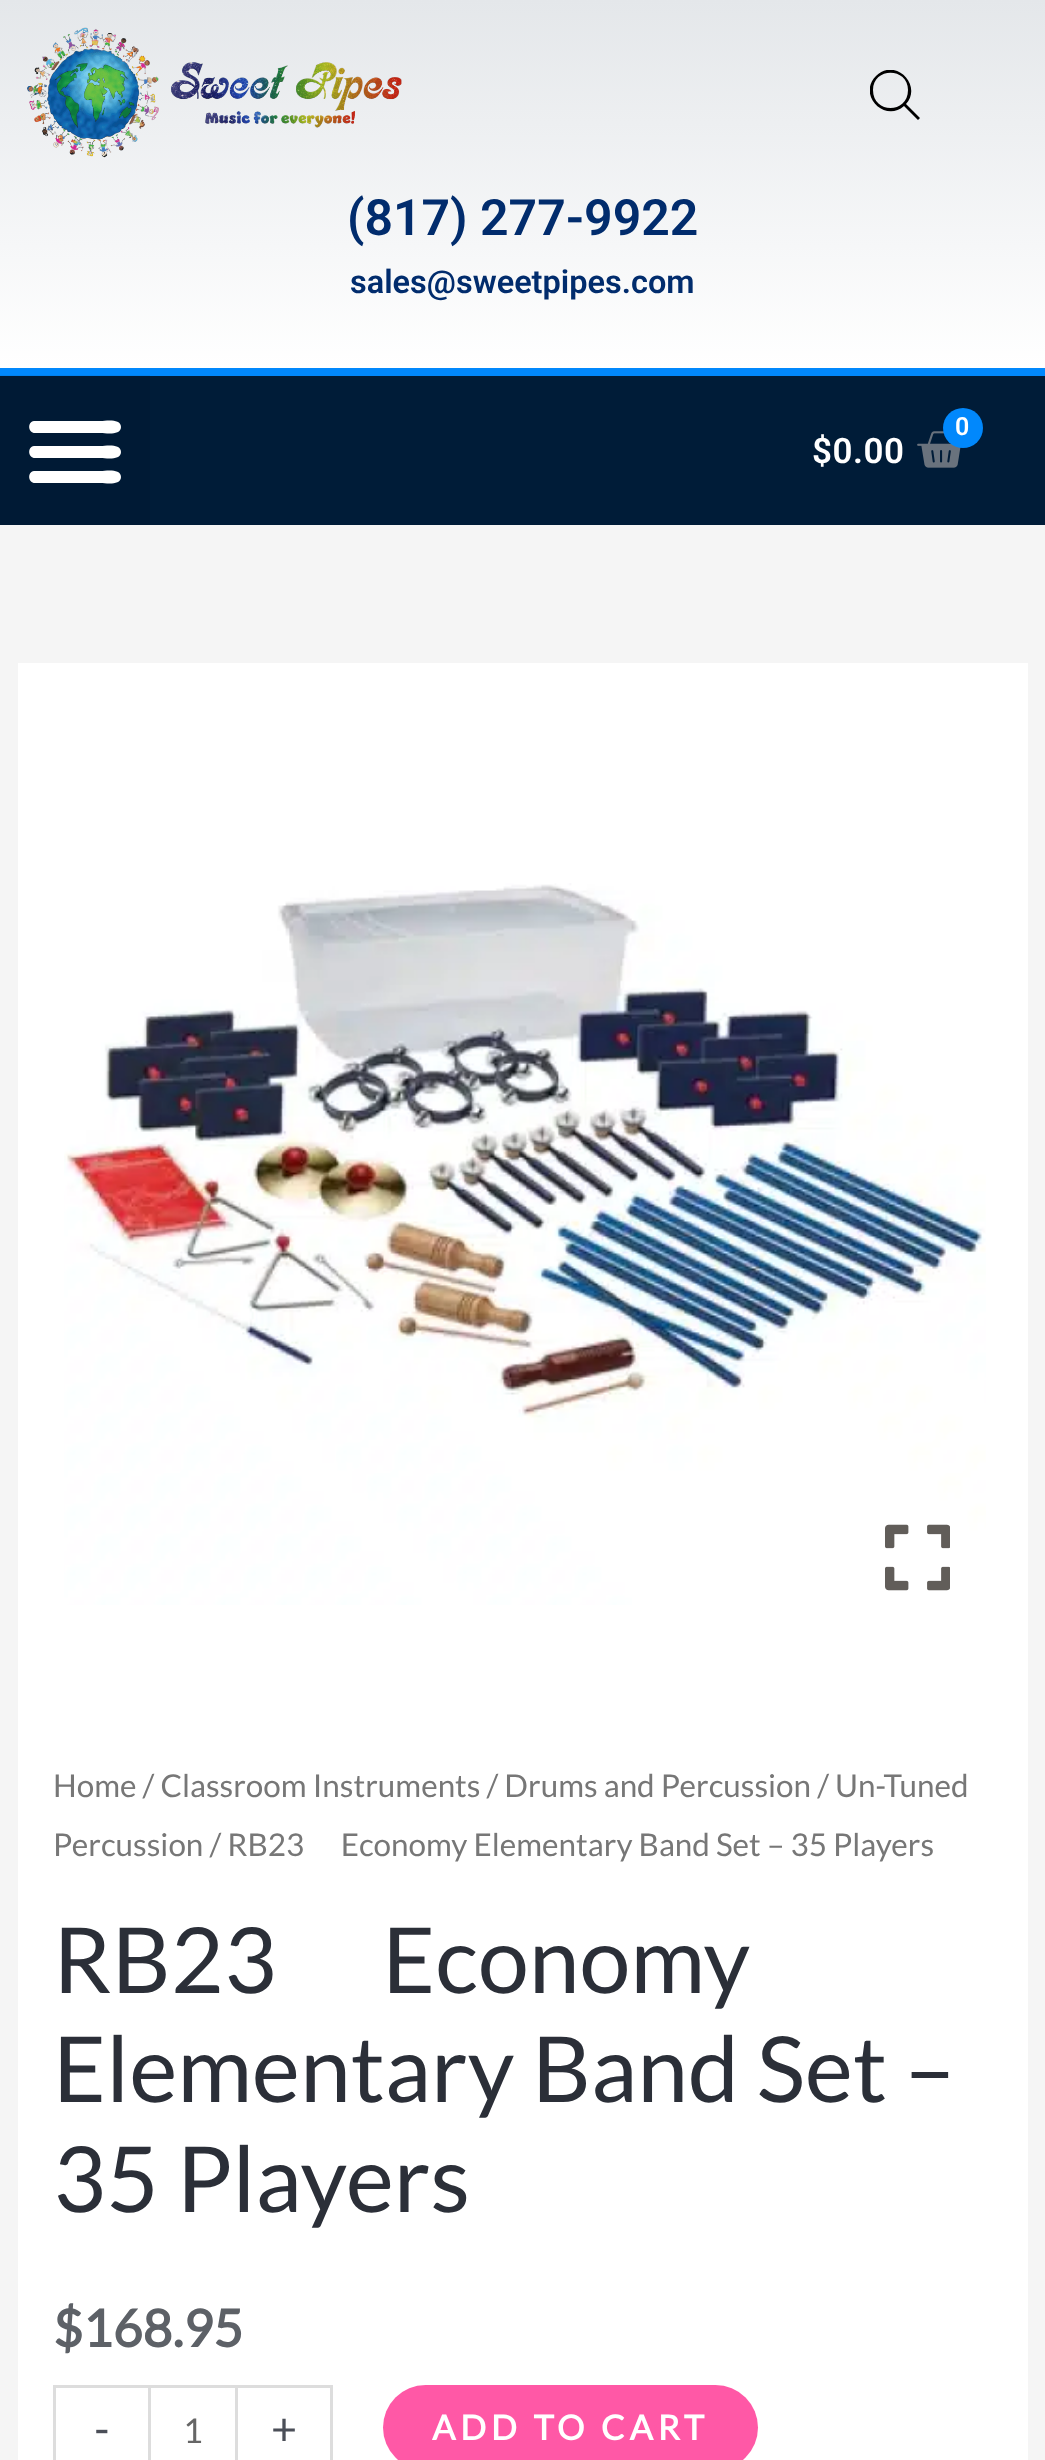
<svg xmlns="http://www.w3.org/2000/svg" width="1045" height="2460">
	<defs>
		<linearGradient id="g1" gradientUnits="userSpaceOnUse" x1="523" y1="0" x2="523" y2="368"><stop offset="0" stop-color="#E4E7EA" /><stop offset="1" stop-color="#FFFFFF" /></linearGradient>
		<clipPath id="clip1"><rect x="870" y="70" width="50" height="50" /></clipPath>
	</defs>
	<rect width="100%" height="100%" fill="#F5F5F5" />
	<rect x="0" y="0" width="1045" height="368" fill="url(#g1)" />
	<image x="27" y="27" width="375" height="131" href="assets/img1.png" />
	<g clip-path="url(#clip1)">
		<path d="M920 118L906 104C923 85 895 57 876 76C857 95 885 123 904 106L918 120ZM873 90C873 67 908 67 908 90C908 114 873 114 873 90Z" fill="#000000" />
	</g>
	<text x="347" y="235" font-family="Roboto" font-size="50" font-weight="600" fill="#012C6D">(817) 277-9922</text>
	<text x="350" y="293" font-family="Roboto" font-size="32.5" font-weight="600" fill="#012C6D">sales@sweetpipes.com</text>
	<rect x="0" y="376" width="1045" height="149" fill="#001C38" />
	<rect x="0" y="368" width="1045" height="8" fill="#0188FC" />
	<rect x="0" y="375" width="150" height="150" fill="#000000" fill-opacity="0.05" />
	<path d="M35 433H101C105 433 121 436 121 427C121 418 105 421 101 421H34C27 422 28 433 35 433ZM35 458H101C105 458 121 461 121 452C121 443 105 446 101 446H34C27 447 28 458 35 458ZM35 483H101C105 483 121 486 121 477C121 468 105 471 101 471H34C27 472 28 483 35 483Z" fill="#FFFFFF" />
	<image x="917" y="431" width="44" height="37" href="assets/img2.png" />
	<circle cx="963" cy="428" r="20" fill="#0188FC" />
	<text x="955" y="435" font-family="Roboto" font-size="25" font-weight="600" letter-spacing="0.5" fill="#FFFFFF">0</text>
	<text x="812" y="463" font-family="Roboto" font-size="35" font-weight="600" letter-spacing="0.5" fill="#FFFFFF">$0.00</text>
	<rect x="18" y="663" width="1010" height="1797" fill="#FFFFFF" />
	<image x="64" y="883" width="922" height="722" href="assets/img3.png" />
	<image x="885" y="1524" width="65" height="67" href="assets/img4.png" />
	<g font-family="Lato" font-size="31.45" fill="#777777">
		<text x="53" y="1797">Home / Classroom Instruments / Drums and Percussion / Un-Tuned</text>
		<text x="53" y="1856" xml:space="preserve">Percussion / RB23      Economy Elementary Band Set – 35 Players</text>
	</g>
	<g font-family="Lato" font-size="91.25" fill="#2B2F38">
		<text x="53" y="1993" xml:space="preserve">RB23      Economy</text>
		<text x="53" y="2102">Elementary Band Set –</text>
		<text x="53" y="2212">35 Players</text>
	</g>
	<text x="53" y="2347" font-family="Lato" font-size="51.5" font-weight="700" fill="#5D6167">$168.95</text>
	<rect x="53" y="2385" width="95" height="3" fill="#DDDDDD" />
	<rect x="53" y="2385" width="3" height="75" fill="#DDDDDD" />
	<text x="94" y="2445" font-family="Lato" font-size="45" fill="#4B4F58">-</text>
	<rect x="149.5" y="2386.5" width="87" height="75" fill="none" stroke="#DDDDDD" stroke-width="3" />
	<text x="183" y="2443" font-family="Lato" font-size="34.25" fill="#666666">1</text>
	<rect x="238" y="2385" width="95" height="3" fill="#DDDDDD" />
	<rect x="330" y="2385" width="3" height="75" fill="#DDDDDD" />
	<text x="271" y="2445" font-family="Lato" font-size="45" fill="#4B4F58">+</text>
	<rect x="383" y="2385" width="375" height="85" rx="42.5" fill="#FF58A6" />
	<text x="432" y="2440" font-family="Lato" font-size="34.25" font-weight="700" letter-spacing="5" fill="#FFFFFF">ADD TO CART</text>
</svg>
